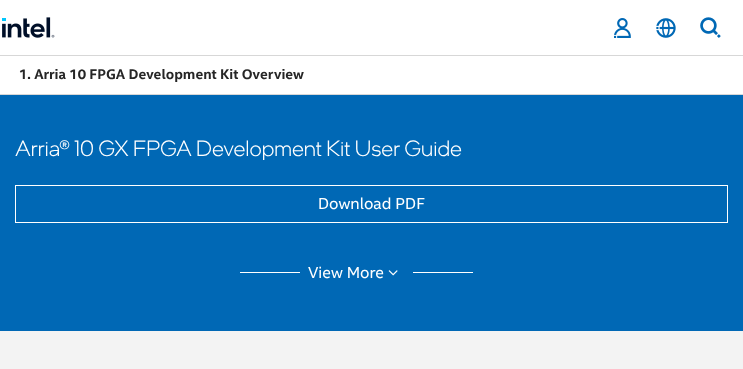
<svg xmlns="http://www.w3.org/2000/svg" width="743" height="369">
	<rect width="100%" height="100%" fill="#FFFFFF" />
	<rect x="0" y="55" width="743" height="1" fill="#D7D7D7" />
	<image x="2" y="17" width="53" height="21" href="assets/img1.png" />
	<image x="614" y="18" width="17" height="20" href="assets/img2.png" />
	<image x="656" y="18" width="20" height="20" href="assets/img3.png" />
	<image x="700" y="17" width="21" height="21" href="assets/img4.png" />
	<rect x="0" y="94" width="743" height="1" fill="#D7D7D7" />
	<text x="19" y="79" font-family="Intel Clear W" font-size="14" font-weight="700" fill="#262626">1. Arria 10 FPGA Development Kit Overview</text>
	<rect x="0" y="95" width="743" height="236" fill="#0068B5" />
	<text x="15" y="156" font-family="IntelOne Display" font-size="22" font-weight="300" fill="#FFFFFF">Arria® 10 GX FPGA Development Kit User Guide</text>
	<rect x="15.5" y="185.5" width="712" height="37" fill="none" stroke="#FFFFFF" />
	<text x="318" y="209" font-family="Intel Clear W" font-size="16" fill="#FFFFFF">Download PDF</text>
	<rect x="240" y="272" width="60" height="1" fill="#FFFFFF" />
	<text x="308" y="278" font-family="Intel Clear W" font-size="16" fill="#FFFFFF">View More</text>
	<image x="388" y="270" width="10" height="6" href="assets/img5.png" />
	<rect x="413" y="272" width="60" height="1" fill="#FFFFFF" />
	<rect x="0" y="331" width="743" height="38" fill="#F3F3F3" />
</svg>
